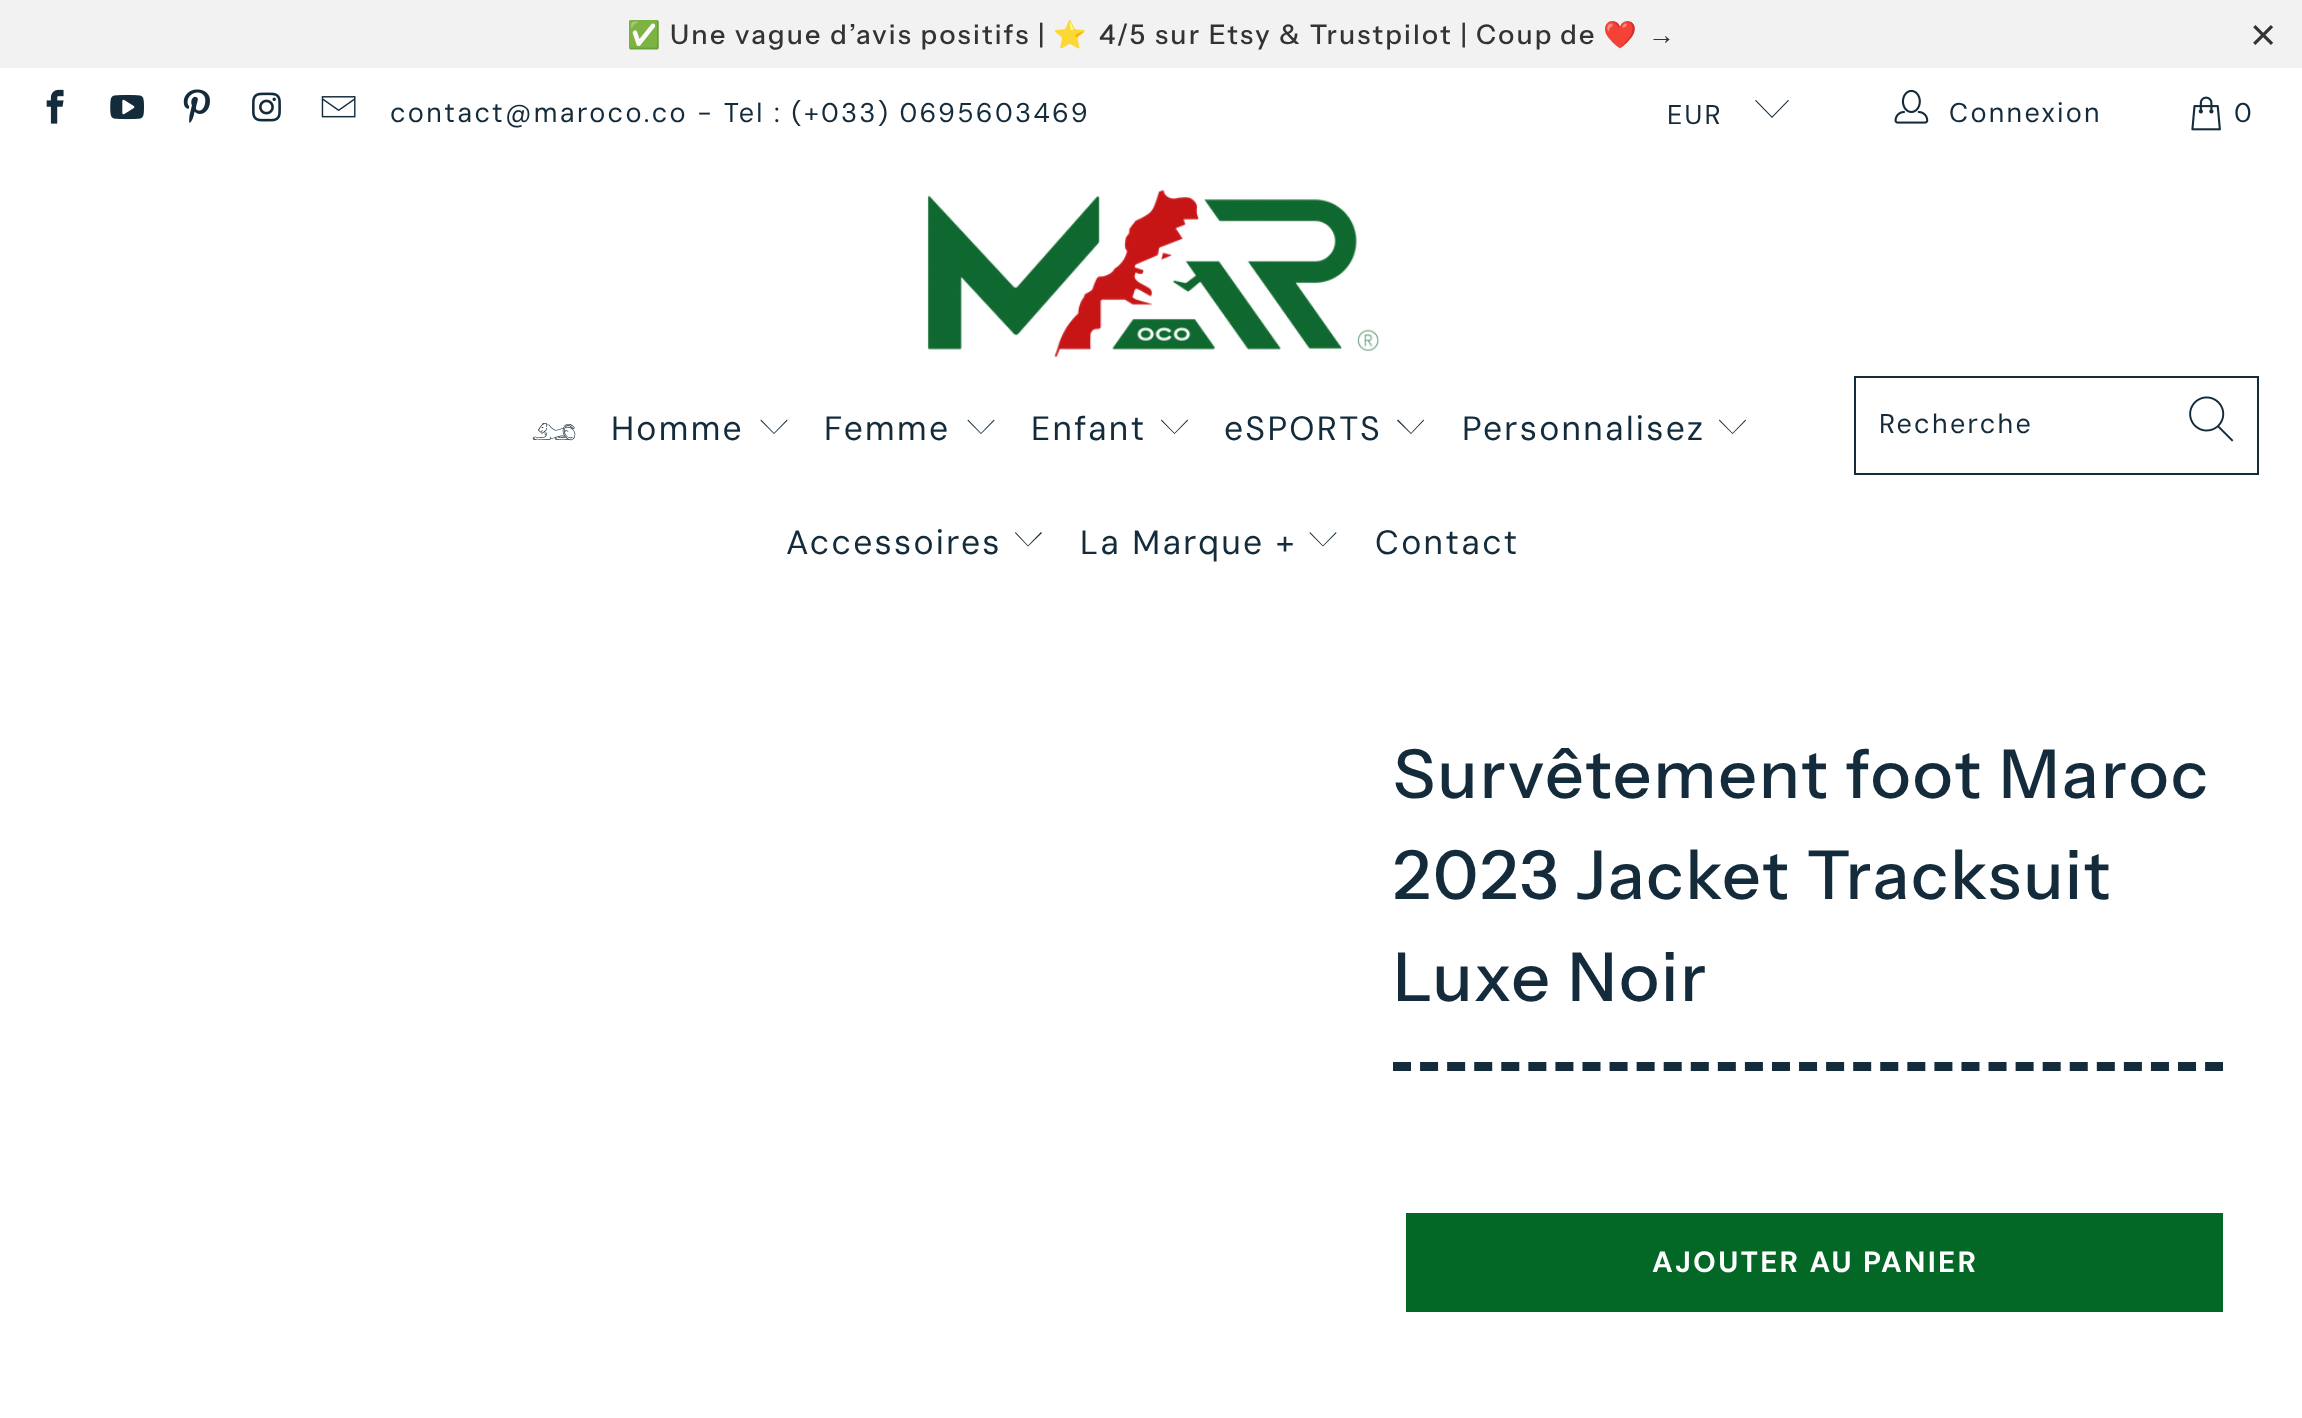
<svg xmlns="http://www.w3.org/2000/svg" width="2302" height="1418">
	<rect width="100%" height="100%" fill="#FFFFFF" />
	<rect x="0" y="0" width="2302" height="68" fill="#F2F2F2" />
	<text x="627" y="44" font-family="Noto Color Emoji" font-size="27" letter-spacing="2.25" fill="#333333">✅</text>
	<text x="670" y="44" font-family="Instrument Sans" font-size="27" font-weight="500" letter-spacing="2.25" fill="#333333">Une vague d’avis positifs |</text>
	<text x="1053" y="44" font-family="Noto Color Emoji" font-size="27" letter-spacing="2.25" fill="#333333">⭐️</text>
	<g font-family="Instrument Sans" font-size="27" font-weight="500" letter-spacing="2.25" fill="#333333">
		<text x="1099" y="44">4/5 sur Etsy &amp; Trustpilot |</text>
		<text x="1476" y="44" word-spacing="-1">Coup de</text>
	</g>
	<text x="1603" y="44" font-family="Noto Color Emoji" font-size="27" letter-spacing="2.25" fill="#333333">❤️</text>
	<text x="1648" y="44" font-family="Liberation Sans" font-size="27" letter-spacing="2.25" fill="#333333">→</text>
	<text x="2250" y="50" font-family="Liberation Sans" font-size="45" letter-spacing="2.25" fill="#333333">×</text>
	<image x="46" y="89" width="18" height="35" href="assets/img1.png" />
	<image x="110" y="95" width="34" height="25" href="assets/img2.png" />
	<image x="183" y="89" width="27" height="34" href="assets/img3.png" />
	<image x="252" y="92" width="29" height="30" href="assets/img4.png" />
	<image x="321" y="96" width="35" height="22" href="assets/img5.png" />
	<g font-family="DM Sans" font-size="27" letter-spacing="2.25" fill="#142B3B">
		<text x="390" y="122">contact@maroco.co - Tel : (+033) 0695603469</text>
		<text x="1667" y="124">EUR</text>
	</g>
	<path d="M1772 118L1755 100.5L1756 100L1772 116.5L1788 100L1789 100.5Z" fill="#142B3B" />
	<image x="1894" y="89" width="35" height="35" href="assets/img6.png" />
	<text x="1949" y="122" font-family="DM Sans" font-size="27" letter-spacing="2.25" fill="#142B3B">Connexion</text>
	<image x="2191" y="96" width="30" height="35" href="assets/img7.png" />
	<text x="2234" y="122" font-family="DM Sans" font-size="27" letter-spacing="2.25" fill="#142B3B">0</text>
	<image x="927" y="190" width="453" height="168" href="assets/img8.png" />
	<text x="531" y="440" font-family="Noto Sans Egyptian Hieroglyphs" font-size="33.75" letter-spacing="2.25" fill="#142B3B">𓃭</text>
	<text x="611" y="440" font-family="DM Sans" font-size="33.75" letter-spacing="2.25" fill="#142B3B">Homme</text>
	<path d="M774 434L760.5 420.5L761 419.5L774 433L787 419.5L787.5 420.5Z" fill="#142B3B" />
	<text x="824" y="440" font-family="DM Sans" font-size="33.75" letter-spacing="2.25" fill="#142B3B">Femme</text>
	<path d="M981 434L967.5 420.5L968 419.5L981 433L994 419.5L994.5 420.5Z" fill="#142B3B" />
	<text x="1031" y="440" font-family="DM Sans" font-size="33.75" letter-spacing="2.25" fill="#142B3B">Enfant</text>
	<path d="M1174.5 434L1161 420.5L1161.5 419.5L1174.5 433L1187.5 419.5L1188 420.5Z" fill="#142B3B" />
	<text x="1224" y="440" font-family="DM Sans" font-size="33.75" letter-spacing="2.25" fill="#142B3B">eSPORTS</text>
	<path d="M1411 434L1397 420.5L1398 419.5L1411 433L1423.5 419.5L1424 420.5Z" fill="#142B3B" />
	<text x="1462" y="440" font-family="DM Sans" font-size="33.75" letter-spacing="2.25" fill="#142B3B">Personnalisez</text>
	<path d="M1732.5 434L1719 420.5L1719.5 419.5L1732.5 433L1745.5 419.5L1746 420.5Z" fill="#142B3B" />
	<text x="786" y="554" font-family="DM Sans" font-size="33.75" letter-spacing="2.25" fill="#142B3B">Accessoires</text>
	<path d="M1028 546.5L1015 533L1015.5 532L1028 545.5L1041 532L1042 533Z" fill="#142B3B" />
	<text x="1080" y="554" font-family="DM Sans" font-size="33.75" letter-spacing="2.25" fill="#142B3B">La Marque +</text>
	<path d="M1323 546.5L1309.5 533L1310 532L1323 545.5L1336 532L1336.5 533Z" fill="#142B3B" />
	<text x="1375" y="554" font-family="DM Sans" font-size="33.75" letter-spacing="2.25" fill="#142B3B">Contact</text>
	<rect x="1855" y="377" width="403" height="97" fill="none" stroke="#142B3B" stroke-width="2" />
	<text x="1879" y="433" font-family="DM Sans" font-size="27" letter-spacing="2.25" fill="#142B3B">Recherche</text>
	<image x="2189" y="396" width="45" height="46" href="assets/img9.png" />
	<g font-family="Instrument Sans" font-size="67.5" font-weight="500" letter-spacing="2.25" fill="#142B3B">
		<text x="1393" y="798">Survêtement foot Maroc</text>
		<text x="1393" y="899">2023 Jacket Tracksuit</text>
		<text x="1393" y="1001">Luxe Noir</text>
	</g>
	<path d="M1393 1066.5H2223" fill="none" stroke="#142B3B" stroke-width="9" stroke-dasharray="18 9.07" />
	<rect x="1406" y="1213" width="817" height="99" fill="#036825" />
	<text x="1652" y="1272" font-family="DM Sans" font-size="29.25" font-weight="700" letter-spacing="2.25" fill="#FFFFFF">AJOUTER AU PANIER</text>
</svg>
